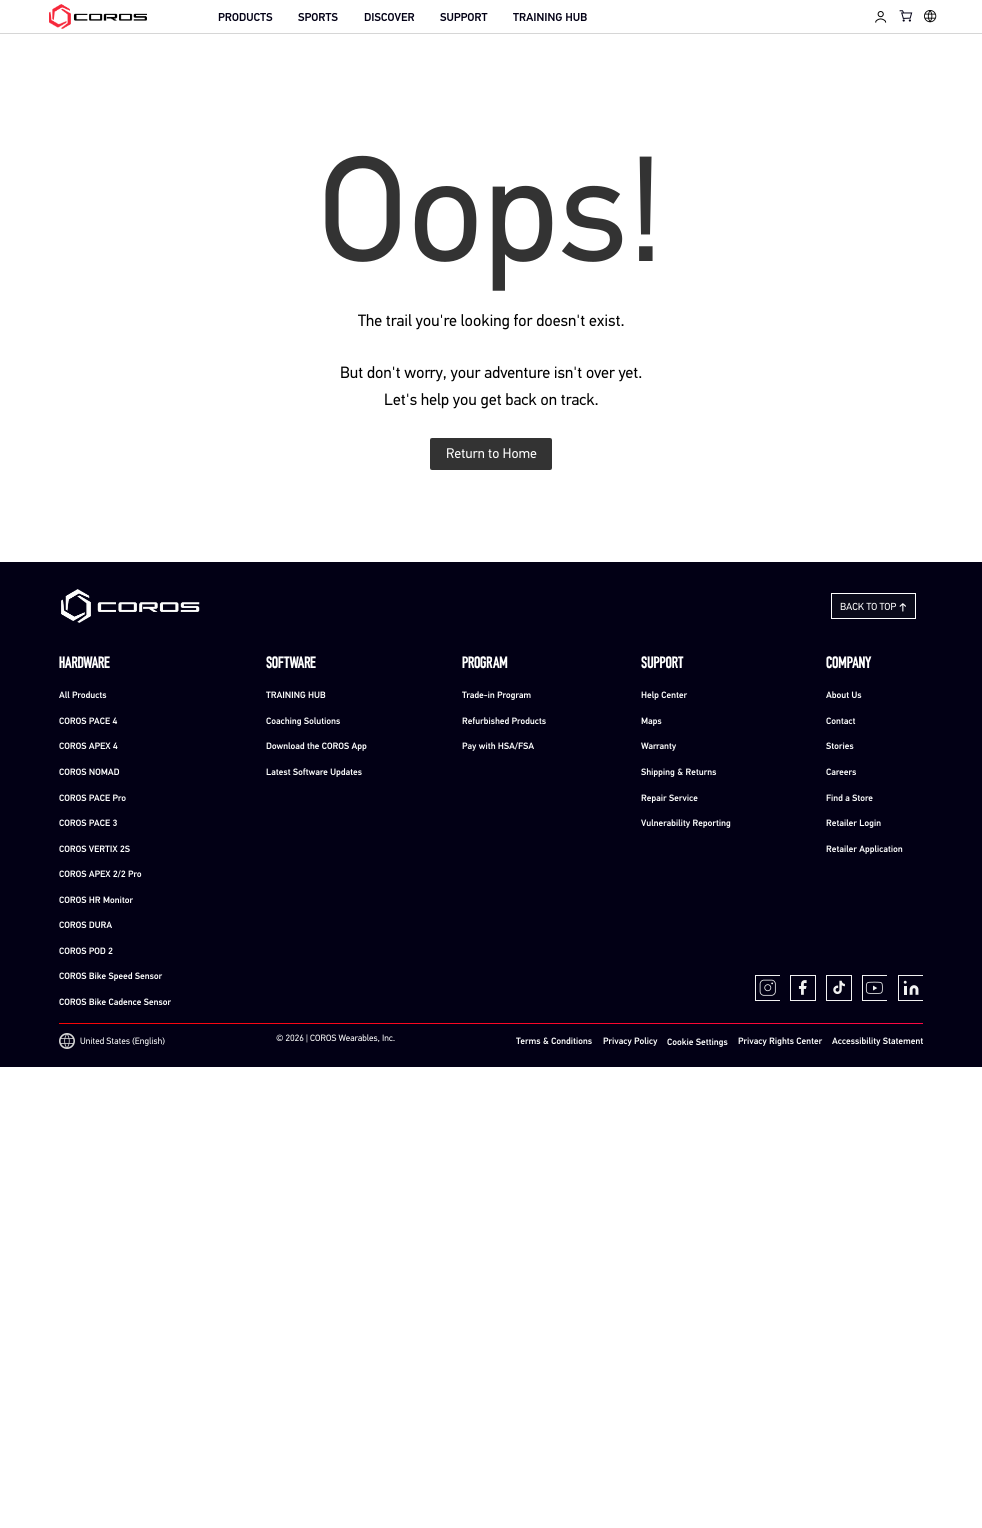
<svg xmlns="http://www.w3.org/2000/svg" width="982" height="1528">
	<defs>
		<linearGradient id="g1" gradientUnits="userSpaceOnUse" x1="923" y1="1031" x2="59" y2="1016"><stop offset="0.04" stop-color="#FB0742" /><stop offset="1" stop-color="#F70505" /></linearGradient>
	</defs>
	<rect width="100%" height="100%" fill="#FFFFFF" />
	<rect x="0" y="33" width="982" height="1" fill="#D6D6D6" />
	<image x="49" y="4" width="98" height="25" href="assets/img1.png" />
	<image x="218" y="13" width="55" height="9" href="assets/img2.png" />
	<image x="298" y="13" width="40" height="9" href="assets/img3.png" />
	<image x="364" y="13" width="51" height="9" href="assets/img4.png" />
	<image x="440" y="13" width="48" height="9" href="assets/img5.png" />
	<image x="513" y="13" width="74" height="9" href="assets/img6.png" />
	<image x="875" y="11" width="12" height="12" href="assets/img7.png" />
	<image x="899" y="10" width="14" height="12" href="assets/img8.png" />
	<image x="924" y="10" width="13" height="13" href="assets/img9.png" />
	<image x="325" y="155" width="328" height="136" href="assets/img10.png" />
	<image x="358" y="314" width="266" height="16" href="assets/img11.png" />
	<image x="341" y="366" width="301" height="16" href="assets/img12.png" />
	<image x="385" y="393" width="213" height="16" href="assets/img13.png" />
	<rect x="430" y="438" width="122" height="32" rx="2" fill="#333333" />
	<image x="447" y="448" width="90" height="11" href="assets/img14.png" />
	<rect x="0" y="562" width="982" height="505" fill="#020015" />
	<image x="61" y="589" width="139" height="34" href="assets/img15.png" />
	<rect x="831.5" y="593.5" width="84" height="25" fill="#0A0A1A" stroke="#FFFFFF" />
	<image x="840" y="602" width="57" height="9" href="assets/img16.png" />
	<image x="899" y="603" width="7" height="9" href="assets/img17.png" />
	<text x="59" y="668" font-family="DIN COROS" font-size="16.5" font-weight="700" fill="#FFFFFF">HARDWARE</text>
	<image x="59" y="691" width="48" height="7" href="assets/img18.png" />
	<image x="59" y="717" width="59" height="7" href="assets/img19.png" />
	<image x="59" y="742" width="59" height="7" href="assets/img20.png" />
	<image x="59" y="768" width="61" height="7" href="assets/img21.png" />
	<image x="59" y="794" width="67" height="7" href="assets/img22.png" />
	<image x="59" y="819" width="58" height="7" href="assets/img23.png" />
	<image x="59" y="845" width="71" height="7" href="assets/img24.png" />
	<image x="59" y="870" width="83" height="8" href="assets/img25.png" />
	<image x="59" y="896" width="74" height="7" href="assets/img26.png" />
	<image x="59" y="921" width="53" height="7" href="assets/img27.png" />
	<image x="59" y="947" width="54" height="7" href="assets/img28.png" />
	<image x="59" y="972" width="104" height="9" href="assets/img29.png" />
	<image x="59" y="998" width="112" height="7" href="assets/img30.png" />
	<text x="266" y="668" font-family="DIN COROS" font-size="16.5" font-weight="700" fill="#FFFFFF">SOFTWARE</text>
	<image x="266" y="691" width="60" height="7" href="assets/img31.png" />
	<image x="266" y="717" width="74" height="9" href="assets/img32.png" />
	<image x="266" y="742" width="101" height="9" href="assets/img33.png" />
	<image x="266" y="768" width="96" height="9" href="assets/img34.png" />
	<text x="462" y="668" font-family="DIN COROS" font-size="16.5" font-weight="700" fill="#FFFFFF">PROGRAM</text>
	<image x="462" y="691" width="69" height="9" href="assets/img35.png" />
	<image x="462" y="717" width="84" height="7" href="assets/img36.png" />
	<image x="462" y="742" width="72" height="9" href="assets/img37.png" />
	<text x="641" y="668" font-family="DIN COROS" font-size="16.5" font-weight="700" fill="#FFFFFF">SUPPORT</text>
	<image x="641" y="691" width="47" height="9" href="assets/img38.png" />
	<image x="641" y="717" width="21" height="9" href="assets/img39.png" />
	<image x="641" y="742" width="36" height="9" href="assets/img40.png" />
	<image x="641" y="768" width="76" height="9" href="assets/img41.png" />
	<image x="641" y="794" width="57" height="9" href="assets/img42.png" />
	<image x="641" y="819" width="90" height="9" href="assets/img43.png" />
	<text x="826" y="668" font-family="DIN COROS" font-size="16.5" font-weight="700" fill="#FFFFFF">COMPANY</text>
	<image x="826" y="691" width="36" height="7" href="assets/img44.png" />
	<image x="826" y="717" width="30" height="7" href="assets/img45.png" />
	<image x="826" y="742" width="28" height="7" href="assets/img46.png" />
	<image x="826" y="768" width="30" height="7" href="assets/img47.png" />
	<image x="826" y="794" width="47" height="7" href="assets/img48.png" />
	<image x="826" y="819" width="55" height="9" href="assets/img49.png" />
	<image x="826" y="845" width="77" height="9" href="assets/img50.png" />
	<image x="755" y="975" width="25" height="26" href="assets/img51.png" />
	<image x="790" y="975" width="26" height="26" href="assets/img52.png" />
	<image x="826" y="975" width="26" height="26" href="assets/img53.png" />
	<image x="862" y="975" width="25" height="26" href="assets/img54.png" />
	<image x="898" y="975" width="25" height="26" href="assets/img55.png" />
	<rect x="59" y="1023" width="864" height="1" fill="url(#g1)" />
	<image x="59" y="1033" width="16" height="16" href="assets/img56.png" />
	<image x="80" y="1037" width="85" height="9" href="assets/img57.png" />
	<image x="276" y="1034" width="28" height="8" href="assets/img58.png" />
	<image x="306" y="1034" width="89" height="9" href="assets/img59.png" />
	<image x="516" y="1037" width="76" height="7" href="assets/img60.png" />
	<image x="603" y="1037" width="55" height="9" href="assets/img61.png" />
	<image x="667" y="1038" width="61" height="9" href="assets/img62.png" />
	<image x="738" y="1037" width="85" height="9" href="assets/img63.png" />
	<image x="832" y="1037" width="91" height="9" href="assets/img64.png" />
</svg>
